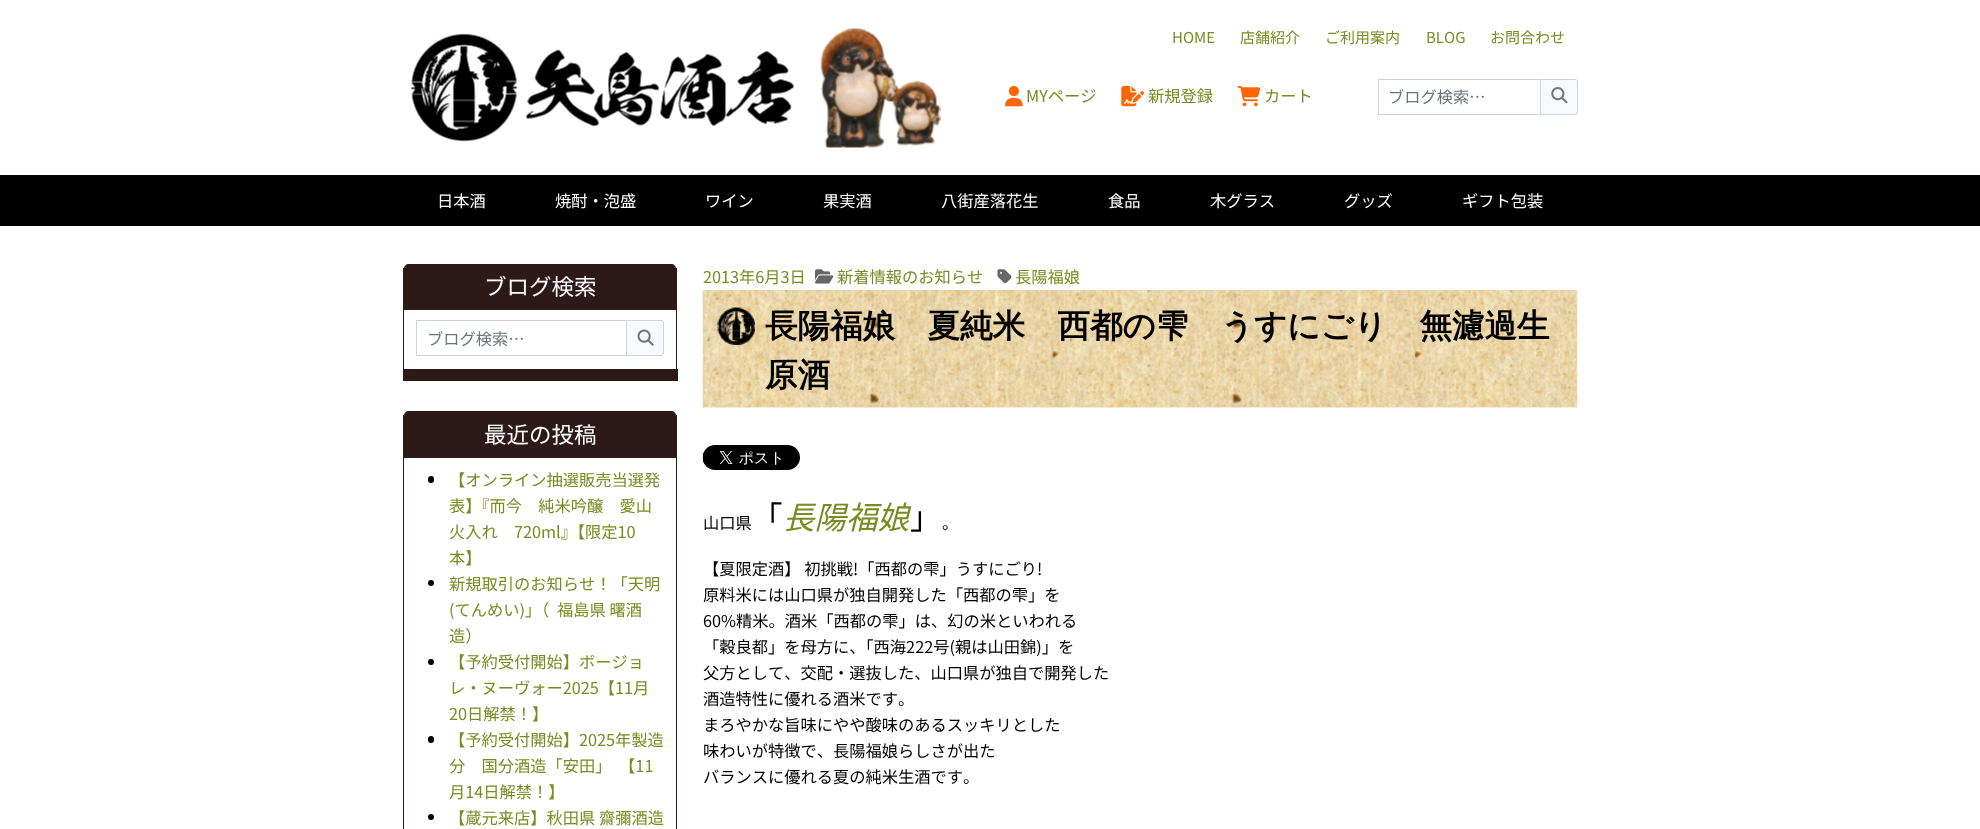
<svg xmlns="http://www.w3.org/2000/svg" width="1980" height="829">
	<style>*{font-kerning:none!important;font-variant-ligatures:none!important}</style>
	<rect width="100%" height="100%" fill="#FFFFFF" />
	<image x="411" y="33" width="383" height="109" href="assets/img1.png" />
	<image x="820" y="28" width="121" height="120" href="assets/img2.png" />
	<g font-family="Noto Sans JP" font-size="15" fill="#798C22">
		<text x="1172" y="43">HOME</text>
		<text x="1240" y="43">店舗紹介</text>
		<text x="1325" y="43">ご利用案内</text>
		<text x="1426" y="43">BLOG</text>
		<text x="1490" y="43">お問合わせ</text>
	</g>
	<image x="1005" y="86" width="18" height="21" href="assets/img3.png" />
	<text x="1026" y="102" font-family="Noto Sans JP" font-size="16.25" fill="#798C22">MYページ</text>
	<image x="1121" y="86" width="24" height="21" href="assets/img4.png" />
	<text x="1148" y="102" font-family="Noto Sans JP" font-size="16.25" fill="#798C22">新規登録</text>
	<image x="1237" y="86" width="24" height="21" href="assets/img5.png" />
	<text x="1264" y="102" font-family="Noto Sans JP" font-size="16.25" fill="#798C22">カート</text>
	<rect x="1378.5" y="79.5" width="162" height="35" fill="none" stroke="#CED4DA" />
	<text x="1388" y="103" font-family="Noto Sans JP" font-size="16.25" fill="#6C757D">ブログ検索…</text>
	<path d="M1540.5 79.5H1575C1576.5 79.5 1577.5 80.5 1577.5 82V112C1577.5 113.5 1576.5 114.5 1575 114.5H1540.5Z" fill="#F8F9FA" stroke="#CED4DA" />
	<image x="1551" y="87" width="17" height="17" href="assets/img6.png" />
	<rect x="0" y="175" width="1980" height="51" fill="#000000" />
	<g font-family="Noto Sans JP" font-size="16.25" fill="#FFFFFF">
		<text x="437" y="207">日本酒</text>
		<text x="555" y="207">焼酎・泡盛</text>
		<text x="705" y="207">ワイン</text>
		<text x="823" y="207">果実酒</text>
		<text x="941" y="207">八街産落花生</text>
		<text x="1108" y="207">食品</text>
		<text x="1210" y="207">木グラス</text>
		<text x="1344" y="207">グッズ</text>
		<text x="1462" y="207">ギフト包装</text>
	</g>
	<rect x="676" y="268" width="1" height="101" fill="#2E1919" />
	<rect x="404" y="369" width="274" height="12" fill="#2E1919" />
	<rect x="403" y="268" width="1" height="113" fill="#2E1919" />
	<path d="M409 264H671C674 264 676 266 676 269V310H404V269C404 266 406 264 409 264Z" fill="#2E1919" />
	<text x="484" y="295" font-family="Noto Sans JP" font-size="22.5" fill="#FFFFFF">ブログ検索</text>
	<rect x="416.5" y="320.5" width="211" height="35" fill="none" stroke="#CED4DA" />
	<text x="427" y="345" font-family="Noto Sans JP" font-size="16.25" fill="#6C757D">ブログ検索…</text>
	<path d="M626.5 320.5H661C662.5 320.5 663.5 321.5 663.5 323V353C663.5 354.5 662.5 355.5 661 355.5H626.5Z" fill="#F8F9FA" stroke="#CED4DA" />
	<image x="637" y="329" width="17" height="17" href="assets/img7.png" />
	<rect x="676" y="415" width="1" height="414" fill="#2E1919" />
	<rect x="403" y="415" width="1" height="414" fill="#2E1919" />
	<path d="M409 411H671C674 411 676 413 676 416V458H404V416C404 413 406 411 409 411Z" fill="#2E1919" />
	<text x="484" y="443" font-family="Noto Sans JP" font-size="22.5" fill="#FFFFFF">最近の投稿</text>
	<rect x="428" y="476" width="6" height="7" rx="3" fill="#000000" />
	<g font-family="Noto Sans JP" font-size="16.25" fill="#798C22">
		<text x="449" y="486">【オンライン抽選販売当選発</text>
		<text x="449" y="512">表】『而今　純米吟醸　愛山</text>
		<text x="449" y="538">火入れ　720ml』【限定10</text>
		<text x="449" y="564">本】</text>
	</g>
	<circle cx="431" cy="583" r="3" fill="#000000" />
	<g font-family="Noto Sans JP" font-size="16.25" fill="#798C22">
		<text x="449" y="590">新規取引のお知らせ！「天明</text>
		<text x="449" y="616">(てんめい)」（</text>
		<text x="557" y="616">福島県 曙酒</text>
		<text x="449" y="642">造）</text>
	</g>
	<circle cx="431" cy="662" r="3" fill="#000000" />
	<g font-family="Noto Sans JP" font-size="16.25" fill="#798C22">
		<text x="449" y="668">【予約受付開始】ボージョ</text>
		<text x="449" y="694">レ・ヌーヴォー2025【11月</text>
		<text x="449" y="720">20日解禁！】</text>
	</g>
	<rect x="428" y="736" width="6" height="7" rx="3" fill="#000000" />
	<g font-family="Noto Sans JP" font-size="16.25" fill="#798C22">
		<text x="449" y="746">【予約受付開始】2025年製造</text>
		<text x="449" y="772">分　国分酒造「安田」</text>
		<text x="611" y="772">　【11</text>
		<text x="449" y="798">月14日解禁！】</text>
	</g>
	<circle cx="431" cy="817" r="3" fill="#000000" />
	<g font-family="Noto Sans JP" font-size="16.25" fill="#798C22">
		<text x="449" y="824">【蔵元来店】秋田県 齋彌酒造</text>
		<text x="703" y="283">2013年6月3日</text>
	</g>
	<image x="815" y="269" width="19" height="15" href="assets/img8.png" />
	<text x="837" y="283" font-family="Noto Sans JP" font-size="16.25" fill="#798C22">新着情報のお知らせ</text>
	<image x="997" y="269" width="15" height="15" href="assets/img9.png" />
	<text x="1015" y="283" font-family="Noto Sans JP" font-size="16.25" fill="#798C22">長陽福娘</text>
	<image x="702" y="290" width="876" height="118" href="assets/img10.png" />
	<image x="717" y="307" width="38" height="38" href="assets/img11.png" />
	<g font-family="WenQuanYi Zen Hei" font-size="32.5" font-weight="700" fill="#000000">
		<text x="765" y="337">長陽福娘　夏純米　西都の雫　うすにごり　無濾過生</text>
		<text x="765" y="386">原酒</text>
	</g>
	<image x="702" y="445" width="98" height="25" href="assets/img12.png" />
	<text x="703" y="529" font-family="Noto Sans JP" font-size="16.25" fill="#000000">山口県</text>
	<text x="751" y="529" font-family="Noto Sans JP" font-size="31.5" fill="#000000">「</text>
	<text x="783" y="529" font-family="Noto Sans JP" font-size="31.5" font-style="italic" fill="#798C22">長陽福娘</text>
	<text x="910" y="529" font-family="Noto Sans JP" font-size="31.5" fill="#000000">」</text>
	<g font-family="Noto Sans JP" font-size="16.25" fill="#000000">
		<text x="942" y="529">。</text>
		<text x="703" y="575">【夏限定酒】 初挑戦!「西都の雫」うすにごり!</text>
		<text x="703" y="601">原料米には山口県が独自開発した「西都の雫」を</text>
		<text x="703" y="627">60%精米。酒米「西都の雫」は、幻の米といわれる</text>
		<text x="703" y="653">「穀良都」を母方に、「西海222号(親は山田錦)」を</text>
		<text x="703" y="679">父方として、交配・選抜した、山口県が独自で開発した</text>
		<text x="703" y="705">酒造特性に優れる酒米です。</text>
		<text x="703" y="731">まろやかな旨味にやや酸味のあるスッキリとした</text>
		<text x="703" y="757">味わいが特徴で、長陽福娘らしさが出た</text>
		<text x="703" y="783">バランスに優れる夏の純米生酒です。</text>
	</g>
</svg>
